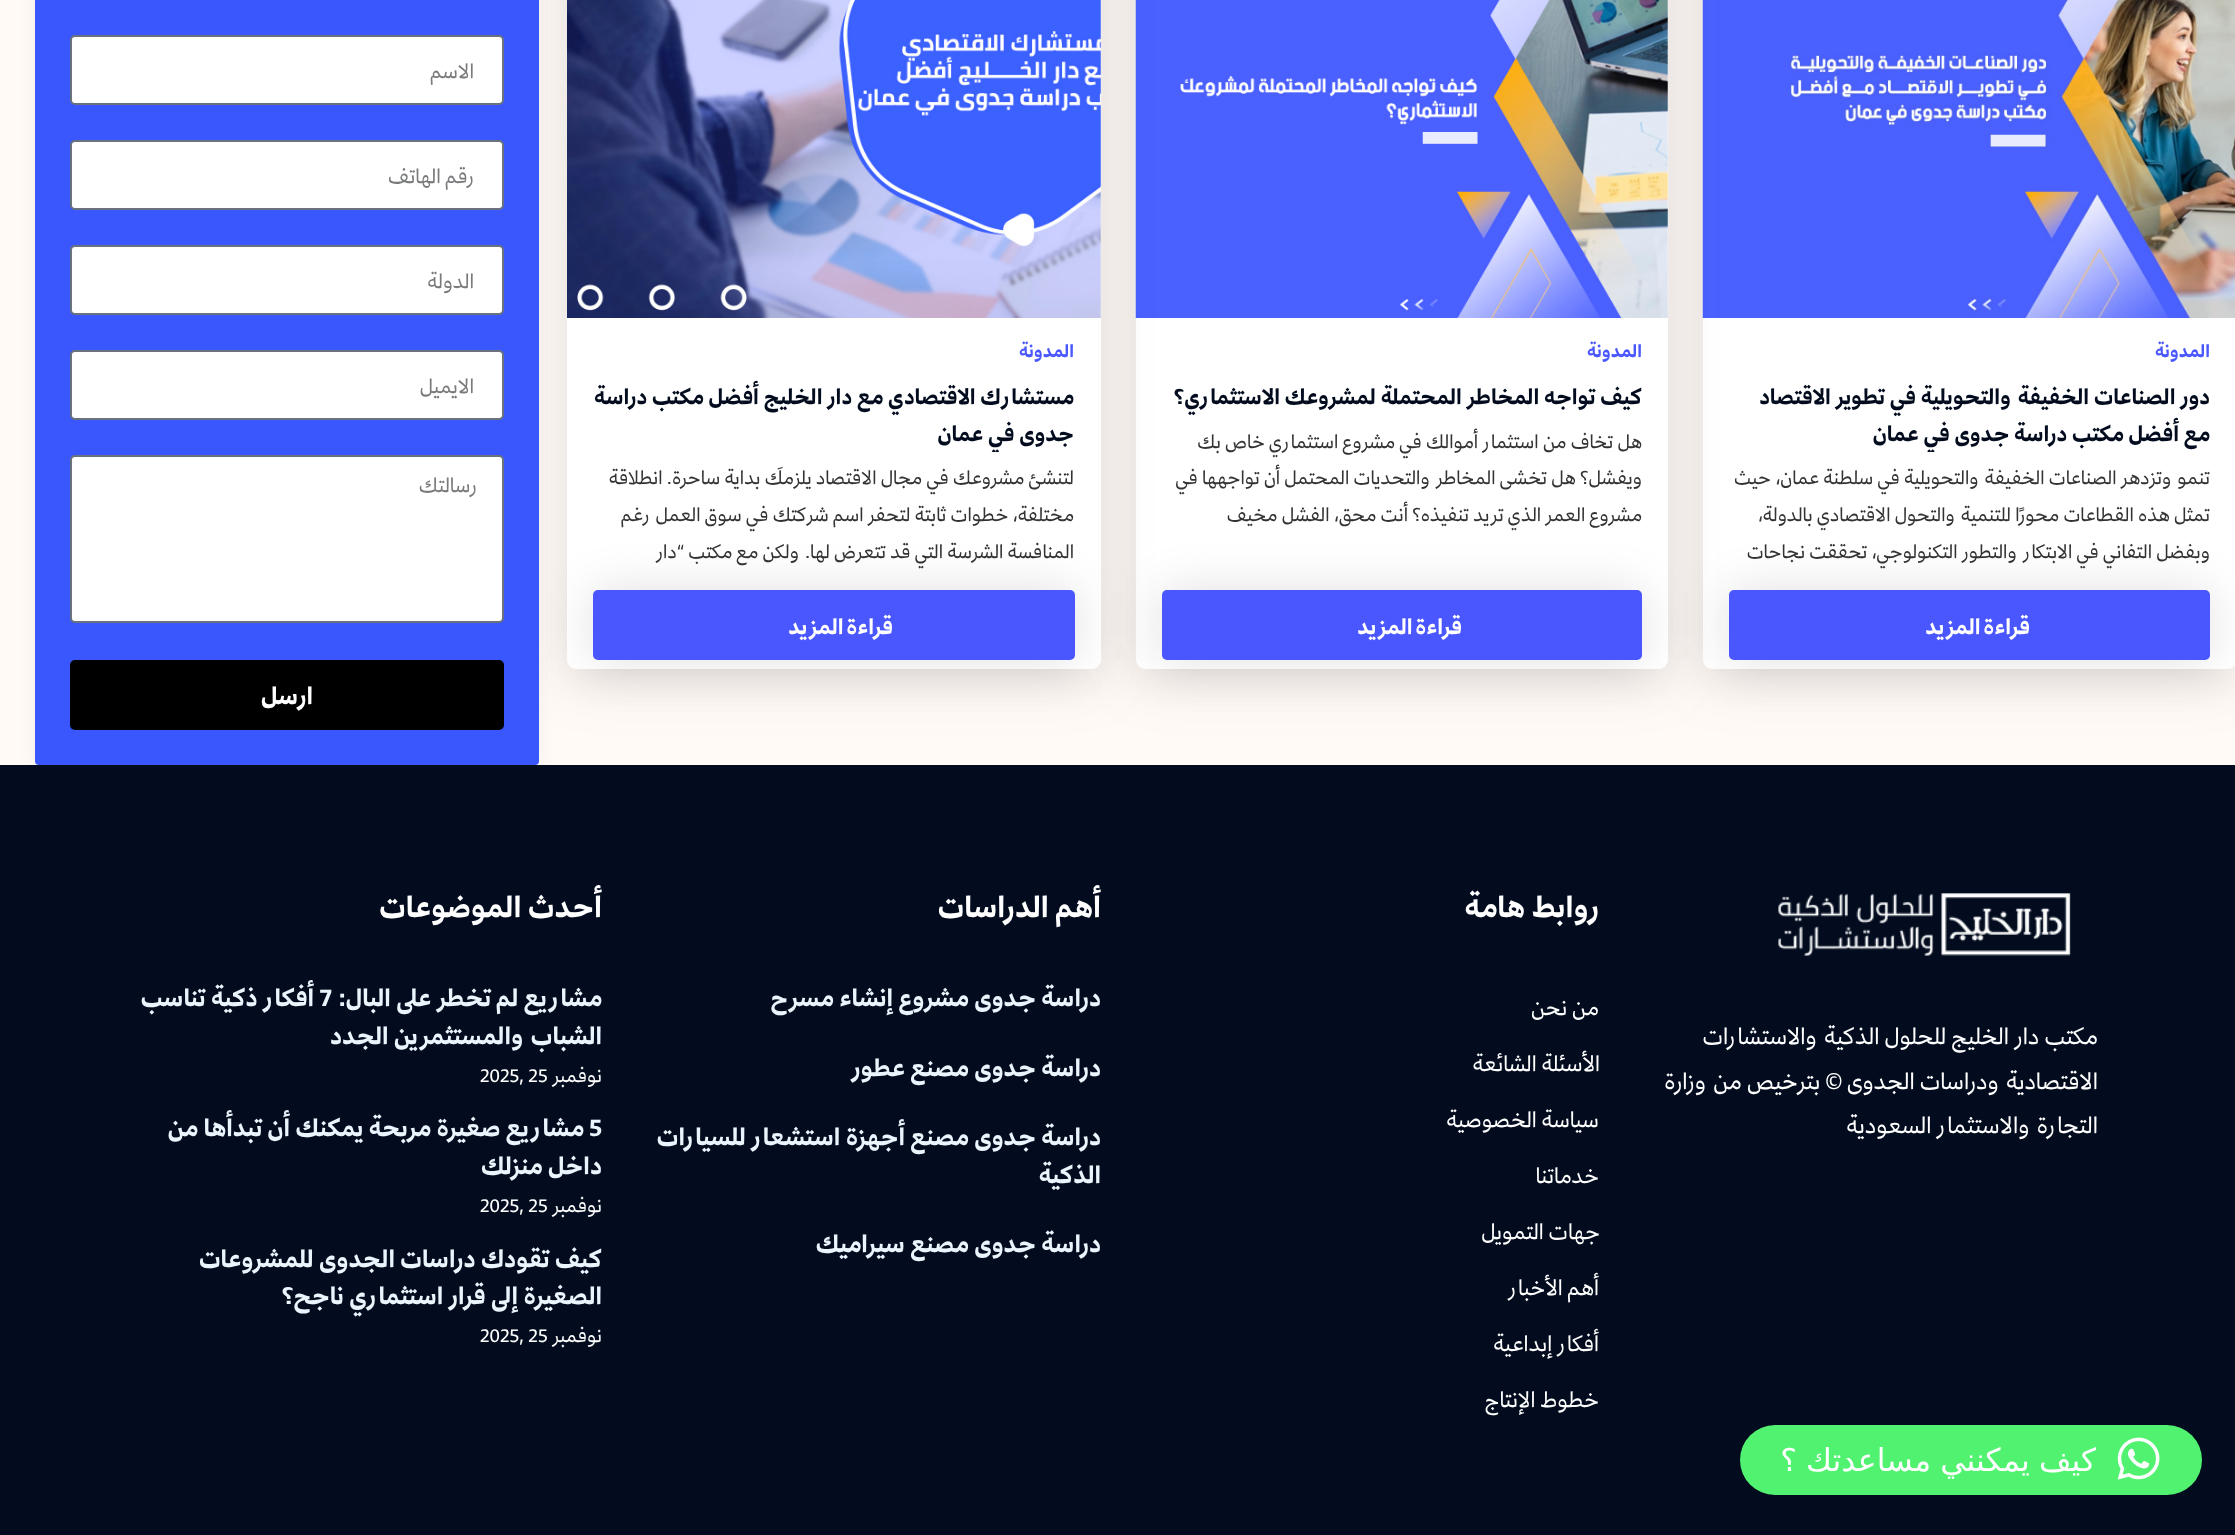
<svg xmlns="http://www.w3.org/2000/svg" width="2235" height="1535">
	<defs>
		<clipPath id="clip1"><rect x="1729" y="378" width="481" height="74" /></clipPath>
		<clipPath id="clip2"><rect x="593" y="378" width="482" height="74" /></clipPath>
	</defs>
	<rect width="100%" height="100%" fill="#FFFAF5" />
	<rect x="1703" y="-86" width="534" height="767" rx="9" fill="#64646F" fill-opacity="0.2" filter="blur(25.5px)" />
	<rect x="1703" y="-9" width="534" height="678" rx="9" fill="#FFFFFF" />
	<image x="1702" y="0" width="533" height="318" href="assets/img1.png" />
	<text x="2210" y="357" font-family="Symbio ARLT" font-size="23" font-weight="700" direction="rtl" fill="#4A57FE">المدونة</text>
	<text x="2210" y="404" font-family="Symbio ARLT" font-size="28" font-weight="700" direction="rtl" fill="#020C1E">دور الصناعات الخفيفة والتحويلية في تطوير الاقتصاد</text>
	<g clip-path="url(#clip1)">
		<text x="2210" y="441" font-family="Symbio ARLT" font-size="28" font-weight="700" direction="rtl" fill="#020C1E">مع أفضل مكتب دراسة جدوى في عمان</text>
	</g>
	<g font-family="Symbio ARLT" font-size="24.5" direction="rtl" fill="#333333">
		<text x="2210" y="484">تنمو وتزدهر الصناعات الخفيفة والتحويلية في سلطنة عمان، حيث</text>
		<text x="2210" y="521">تمثل هذه القطاعات محورًا للتنمية والتحول الاقتصادي بالدولة،</text>
		<text x="2210" y="558">وبفضل التفاني في الابتكار والتطور التكنولوجي، تحققت نجاحات</text>
	</g>
	<rect x="1729" y="590" width="481" height="70" rx="5" fill="#000000" fill-opacity="0.12" filter="blur(23.5px)" />
	<rect x="1729" y="590" width="481" height="70" rx="5" fill="#4A57FE" />
	<text x="2030" y="634" word-spacing="-2" font-family="Symbio ARLT" font-size="28" font-weight="700" letter-spacing="0.75" direction="rtl" fill="#FFFFFF">قراءة المزيد</text>
	<rect x="1136" y="-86" width="532" height="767" rx="9" fill="#64646F" fill-opacity="0.2" filter="blur(25.5px)" />
	<rect x="1136" y="-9" width="532" height="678" rx="9" fill="#FFFFFF" />
	<image x="1135" y="0" width="533" height="318" href="assets/img2.png" />
	<text x="1642" y="357" font-family="Symbio ARLT" font-size="23" font-weight="700" direction="rtl" fill="#4A57FE">المدونة</text>
	<text x="1642" y="404" font-family="Symbio ARLT" font-size="28" font-weight="700" direction="rtl" fill="#020C1E">كيف تواجه المخاطر المحتملة لمشروعك الاستثماري؟</text>
	<g font-family="Symbio ARLT" font-size="24.5" direction="rtl" fill="#333333">
		<text x="1642" y="448">هل تخاف من استثمار أموالك في مشروع استثماري خاص بك</text>
		<text x="1642" y="484">ويفشل؟ هل تخشى المخاطر والتحديات المحتمل أن تواجهها في</text>
		<text x="1642" y="521">مشروع العمر الذي تريد تنفيذه؟ أنت محق، الفشل مخيف</text>
	</g>
	<rect x="1162" y="590" width="480" height="70" rx="5" fill="#000000" fill-opacity="0.12" filter="blur(23.5px)" />
	<rect x="1162" y="590" width="480" height="70" rx="5" fill="#4A57FE" />
	<text x="1462" y="634" word-spacing="-2" font-family="Symbio ARLT" font-size="28" font-weight="700" letter-spacing="0.75" direction="rtl" fill="#FFFFFF">قراءة المزيد</text>
	<rect x="567" y="-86" width="534" height="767" rx="9" fill="#64646F" fill-opacity="0.2" filter="blur(25.5px)" />
	<rect x="567" y="-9" width="534" height="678" rx="9" fill="#FFFFFF" />
	<image x="567" y="0" width="534" height="318" href="assets/img3.png" />
	<text x="1074" y="357" font-family="Symbio ARLT" font-size="23" font-weight="700" direction="rtl" fill="#4A57FE">المدونة</text>
	<text x="1074" y="404" font-family="Symbio ARLT" font-size="28" font-weight="700" direction="rtl" fill="#020C1E">مستشارك الاقتصادي مع دار الخليج أفضل مكتب دراسة</text>
	<g clip-path="url(#clip2)">
		<text x="1074" y="441" font-family="Symbio ARLT" font-size="28" font-weight="700" direction="rtl" fill="#020C1E">جدوى في عمان</text>
	</g>
	<g font-family="Symbio ARLT" font-size="24.5" direction="rtl" fill="#333333">
		<text x="1074" y="484">لتنشئ مشروعك في مجال الاقتصاد يلزمكَ بداية ساحرة. انطلاقة</text>
		<text x="1074" y="521">مختلفة، خطوات ثابتة لتحفر اسم شركتك في سوق العمل رغم</text>
		<text x="1074" y="558">المنافسة الشرسة التي قد تتعرض لها. ولكن مع مكتب “دار</text>
	</g>
	<rect x="593" y="590" width="482" height="70" rx="5" fill="#000000" fill-opacity="0.12" filter="blur(23.5px)" />
	<rect x="593" y="590" width="482" height="70" rx="5" fill="#4A57FE" />
	<text x="893" y="634" word-spacing="-2" font-family="Symbio ARLT" font-size="28" font-weight="700" letter-spacing="0.75" direction="rtl" fill="#FFFFFF">قراءة المزيد</text>
	<rect x="35" y="-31" width="504" height="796" rx="4" fill="#0A0A0A" fill-opacity="0.05" filter="blur(9px)" />
	<rect x="35" y="-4" width="504" height="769" rx="4" fill="#3A57FE" />
	<rect x="71" y="36" width="432" height="68" rx="4" fill="#FFFFFF" stroke="#69727D" stroke-width="2" />
	<text x="474" y="78" font-family="Symbio ARLT" font-size="26" direction="rtl" fill="#797A7C">الاسم</text>
	<rect x="71" y="141" width="432" height="68" rx="4" fill="#FFFFFF" stroke="#69727D" stroke-width="2" />
	<text x="474" y="183" font-family="Symbio ARLT" font-size="26" direction="rtl" fill="#797A7C">رقم الهاتف</text>
	<rect x="71" y="246" width="432" height="68" rx="4" fill="#FFFFFF" stroke="#69727D" stroke-width="2" />
	<text x="474" y="288" font-family="Symbio ARLT" font-size="26" direction="rtl" fill="#797A7C">الدولة</text>
	<rect x="71" y="351" width="432" height="68" rx="4" fill="#FFFFFF" stroke="#69727D" stroke-width="2" />
	<text x="474" y="393" font-family="Symbio ARLT" font-size="26" direction="rtl" fill="#797A7C">الايميل</text>
	<rect x="71" y="456" width="432" height="166" rx="4" fill="#FFFFFF" stroke="#69727D" stroke-width="2" />
	<text x="477" y="492" font-family="Symbio ARLT" font-size="26" direction="rtl" fill="#797A7C">رسالتك</text>
	<rect x="70" y="660" width="434" height="70" rx="5" fill="#000000" />
	<text x="313" y="704" font-family="Symbio ARLT" font-size="31.5" font-weight="700" direction="rtl" fill="#FFFFFF">ارسل</text>
	<rect x="0" y="765" width="2235" height="770" fill="#020C1E" />
	<image x="1778" y="893" width="293" height="63" href="assets/img4.png" />
	<g font-family="Symbio ARLT" font-size="29.75" direction="rtl" fill="#FFFFFF">
		<text x="2098" y="1044">مكتب دار الخليج للحلول الذكية والاستشارات</text>
		<text x="2098" y="1089">الاقتصادية ودراسات الجدوى © بترخيص من وزارة</text>
		<text x="2098" y="1133">التجارة والاستثمار السعودية</text>
	</g>
	<text x="1599" y="917" font-family="Symbio ARLT" font-size="38.5" font-weight="700" direction="rtl" fill="#FFFFFF">روابط هامة</text>
	<g font-family="Symbio ARLT" font-size="28" direction="rtl" fill="#FFFFFF">
		<text x="1599" y="1015">من نحن</text>
		<text x="1600" y="1071">الأسئلة الشائعة</text>
		<text x="1599" y="1127">سياسة الخصوصية</text>
		<text x="1599" y="1183">خدماتنا</text>
		<text x="1600" y="1239">جهات التمويل</text>
		<text x="1599" y="1295">أهم الأخبار</text>
		<text x="1599" y="1351">أفكار إبداعية</text>
		<text x="1599" y="1407">خطوط الإنتاج</text>
	</g>
	<text x="1101" y="917" font-family="Symbio ARLT" font-size="38.5" font-weight="700" direction="rtl" fill="#FFFFFF">أهم الدراسات</text>
	<g font-family="Symbio ARLT" font-size="31.5" font-weight="700" direction="rtl" fill="#EBF4FD">
		<text x="1101" y="1006">دراسة جدوى مشروع إنشاء مسرح</text>
		<text x="1101" y="1076">دراسة جدوى مصنع عطور</text>
		<text x="1101" y="1145">دراسة جدوى مصنع أجهزة استشعار للسيارات</text>
		<text x="1101" y="1183">الذكية</text>
		<text x="1101" y="1252">دراسة جدوى مصنع سيراميك</text>
	</g>
	<text x="602" y="917" font-family="Symbio ARLT" font-size="38.5" font-weight="700" direction="rtl" fill="#FFFFFF">أحدث الموضوعات</text>
	<text x="602" y="1006" font-family="Symbio ARLT" font-size="31.5" font-weight="700" direction="rtl" fill="#EBF4FD">مشاريع لم تخطر على البال:</text>
	<text x="319" y="1006" font-family="Symbio ARLT" font-size="31.5" font-weight="700" fill="#EBF4FD">7</text>
	<g font-family="Symbio ARLT" font-size="31.5" font-weight="700" direction="rtl" fill="#EBF4FD">
		<text x="314" y="1006">أفكار ذكية تناسب</text>
		<text x="602" y="1044">الشباب والمستثمرين الجدد</text>
	</g>
	<text x="602" y="1082" font-family="Symbio ARLT" font-size="24.5" direction="rtl" fill="#FFFFFF">نوفمبر</text>
	<text x="480" y="1082" font-family="Symbio ARLT" font-size="24.5" fill="#FFFFFF">2025, 25</text>
	<text x="589" y="1136" font-family="Symbio ARLT" font-size="31.5" font-weight="700" fill="#EBF4FD">5</text>
	<g font-family="Symbio ARLT" font-size="31.5" font-weight="700" direction="rtl" fill="#EBF4FD">
		<text x="584" y="1136">مشاريع صغيرة مربحة يمكنك أن تبدأها من</text>
		<text x="602" y="1174">داخل منزلك</text>
	</g>
	<text x="602" y="1212" font-family="Symbio ARLT" font-size="24.5" direction="rtl" fill="#FFFFFF">نوفمبر</text>
	<text x="480" y="1212" font-family="Symbio ARLT" font-size="24.5" fill="#FFFFFF">2025, 25</text>
	<g font-family="Symbio ARLT" font-size="31.5" font-weight="700" direction="rtl" fill="#EBF4FD">
		<text x="602" y="1267">كيف تقودك دراسات الجدوى للمشروعات</text>
		<text x="602" y="1304">الصغيرة إلى قرار استثماري ناجح؟</text>
	</g>
	<text x="602" y="1342" font-family="Symbio ARLT" font-size="24.5" direction="rtl" fill="#FFFFFF">نوفمبر</text>
	<text x="480" y="1342" font-family="Symbio ARLT" font-size="24.5" fill="#FFFFFF">2025, 25</text>
	<rect x="1740" y="1425" width="462" height="70" rx="35" fill="#52F271" />
	<image x="2117" y="1437" width="43" height="43" href="assets/img5.png" />
	<text x="2096" y="1471" word-spacing="-1" font-family="DejaVu Sans" font-size="31.5" direction="rtl" fill="#FFFFFF">كيف يمكنني مساعدتك ؟</text>
</svg>
